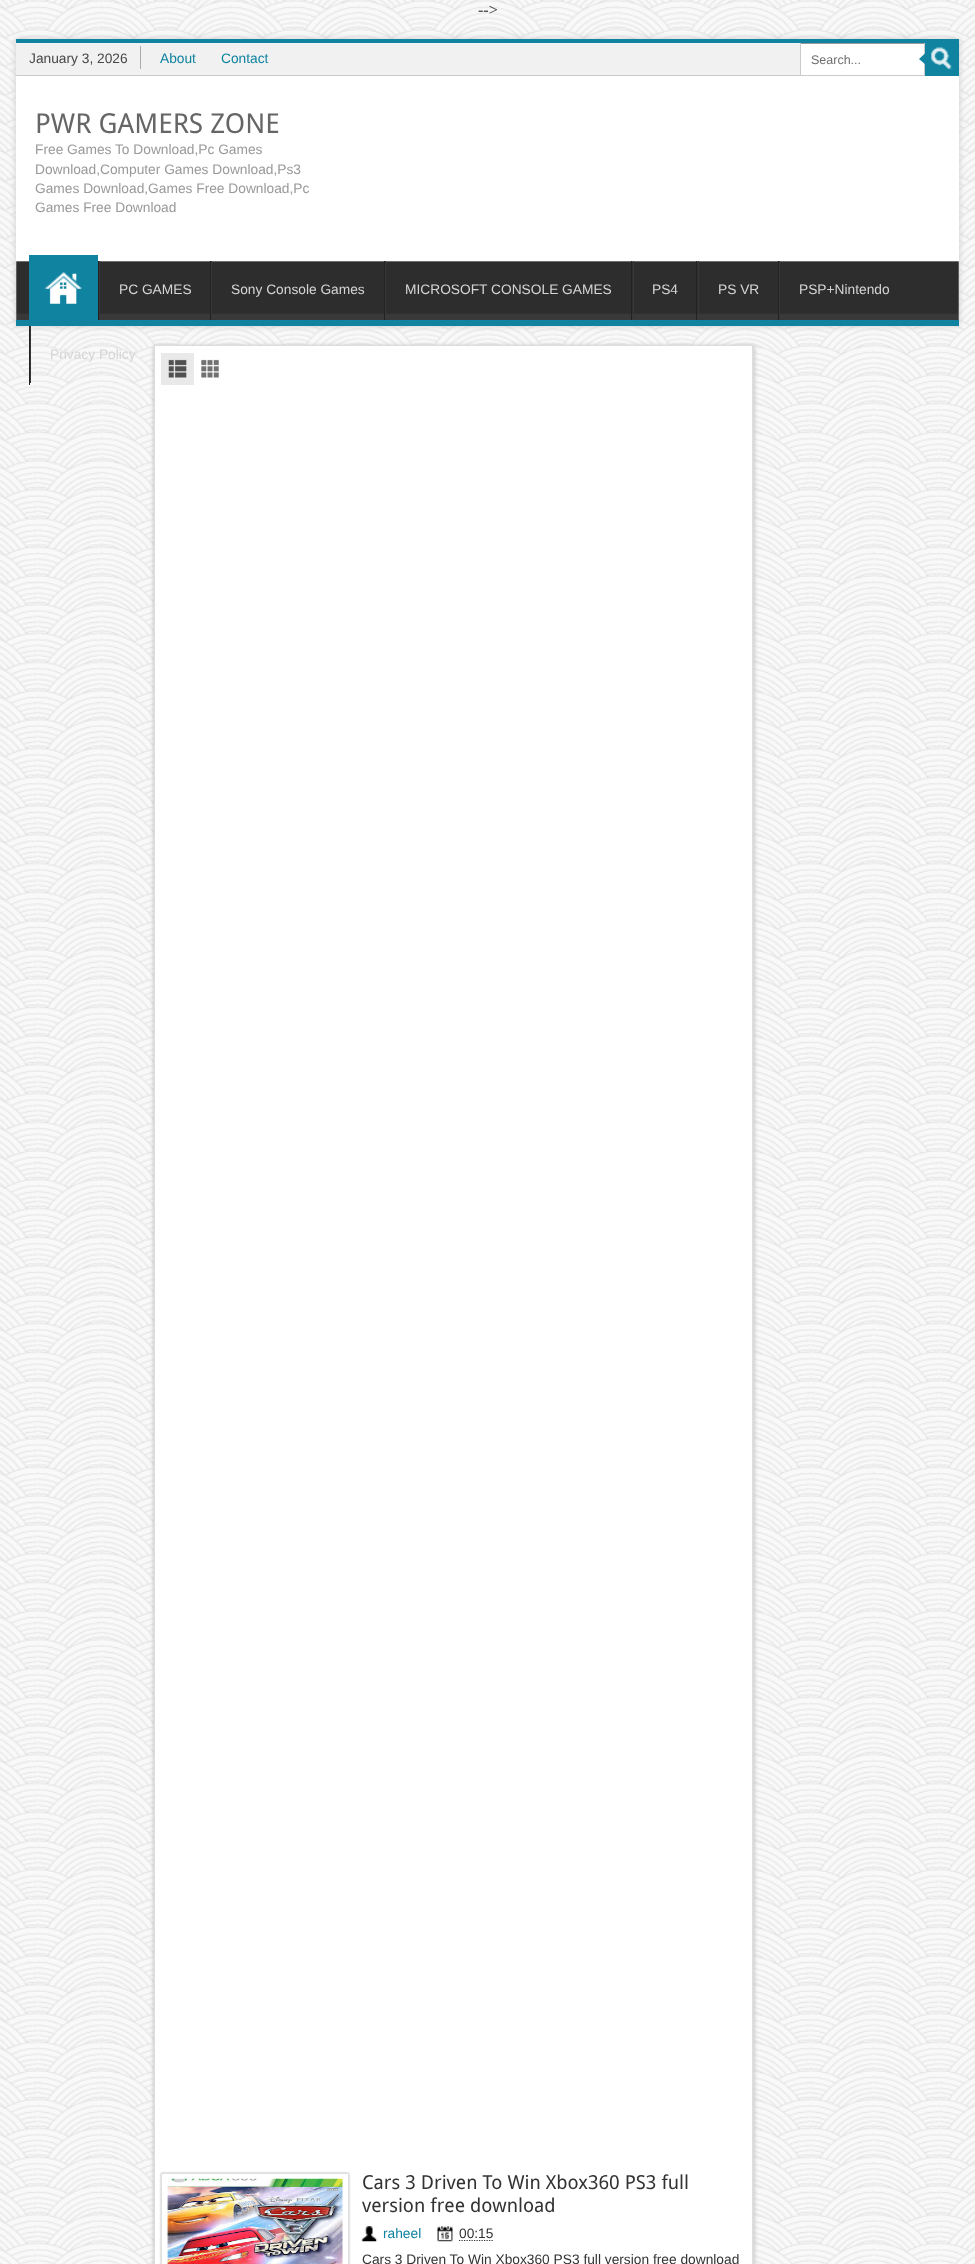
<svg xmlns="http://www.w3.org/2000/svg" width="975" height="2264">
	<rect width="100%" height="100%" fill="#F8F8F8" />
	<image x="0" y="0" width="975" height="2264" href="assets/img1.png" />
	<text x="478" y="15" font-family="Liberation Serif" font-size="16" fill="#333333">--&gt;</text>
	<rect x="16" y="39" width="943" height="287" fill="#CACACA" filter="blur(3px)" />
	<rect x="16" y="76" width="943" height="244" fill="#FFFFFF" />
	<rect x="16" y="39" width="943" height="4" fill="#0F83A0" />
	<rect x="16" y="43" width="784" height="32" fill="#F1F1F1" />
	<rect x="16" y="75" width="4" height="1" fill="#CCCCCC" />
	<rect x="140" y="46" width="1" height="23" fill="#ACACAC" />
	<text x="29" y="63" font-family="Liberation Sans" font-size="13.75" fill="#474747">January 3, 2026</text>
	<g font-family="Liberation Sans" font-size="13.75" fill="#0F83A0">
		<text x="160" y="63">About</text>
		<text x="221" y="63">Contact</text>
	</g>
	<rect x="801" y="44" width="123" height="31" fill="#FFFFFF" />
	<rect x="800" y="43" width="125" height="1" fill="#999999" />
	<rect x="924" y="43" width="1" height="1" fill="#CCCCCC" />
	<rect x="800" y="43" width="1" height="1" fill="#CCCCCC" />
	<text x="811" y="64" font-family="Liberation Sans" font-size="12.5" fill="#6F6F6F">Search...</text>
	<rect x="925" y="43" width="34" height="33" fill="#0F83A0" />
	<path d="M926 52.5V65L919 59Z" fill="#0F83A0" />
	<image x="931" y="47" width="22" height="23" href="assets/img2.png" />
	<text x="35" y="133" font-family="Droid Sans" font-size="27.5" fill="#666666">PWR GAMERS ZONE</text>
	<g font-family="Liberation Sans" font-size="13.75" fill="#999999">
		<text x="35" y="154">Free Games To Download,Pc Games</text>
		<text x="35" y="174">Download,Computer Games Download,Ps3</text>
		<text x="35" y="193">Games Download,Games Free Download,Pc</text>
		<text x="35" y="212">Games Free Download</text>
	</g>
	<image x="16" y="261" width="943" height="59" href="assets/img3.png" />
	<rect x="16" y="320" width="943" height="6" fill="#0F83A0" />
	<rect x="29" y="255" width="69" height="65" fill="#0F83A0" />
	<image x="45" y="272" width="38" height="32" href="assets/img4.png" />
	<rect x="98" y="261" width="1" height="59" fill="#222222" />
	<rect x="99" y="261" width="1" height="57" fill="#383838" />
	<text x="119" y="294" font-family="Liberation Sans" font-size="13.75" fill="#D5D5D5">PC GAMES</text>
	<rect x="210" y="261" width="1" height="59" fill="#222222" />
	<rect x="211" y="261" width="1" height="57" fill="#383838" />
	<text x="231" y="294" font-family="Liberation Sans" font-size="13.75" fill="#D5D5D5">Sony Console Games</text>
	<rect x="384" y="261" width="1" height="59" fill="#222222" />
	<rect x="385" y="261" width="1" height="57" fill="#383838" />
	<text x="405" y="294" font-family="Liberation Sans" font-size="13.75" fill="#D5D5D5">MICROSOFT CONSOLE GAMES</text>
	<rect x="631" y="261" width="1" height="59" fill="#222222" />
	<rect x="633" y="261" width="1" height="57" fill="#383838" />
	<text x="652" y="294" font-family="Liberation Sans" font-size="13.75" fill="#D5D5D5">PS4</text>
	<rect x="696" y="261" width="1" height="59" fill="#222222" />
	<rect x="698" y="261" width="1" height="57" fill="#383838" />
	<text x="718" y="294" font-family="Liberation Sans" font-size="13.75" fill="#D5D5D5">PS VR</text>
	<rect x="778" y="261" width="1" height="59" fill="#222222" />
	<rect x="779" y="261" width="1" height="57" fill="#383838" />
	<text x="799" y="294" font-family="Liberation Sans" font-size="13.75" fill="#D5D5D5">PSP+Nintendo</text>
	<rect x="29" y="326" width="1" height="59" fill="#222222" />
	<rect x="30" y="326" width="1" height="57" fill="#383838" />
	<text x="50" y="359" font-family="Liberation Sans" font-size="13.75" fill="#D5D5D5">Privacy Policy</text>
	<rect x="154" y="346" width="600" height="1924" fill="#B5B5B5" filter="blur(2px)" />
	<rect x="155" y="346" width="597" height="1918" fill="#FFFFFF" />
	<rect x="154" y="345" width="600" height="1" fill="#DDDDDD" />
	<path d="M754 345V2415L752 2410V346Z" fill="#DDDDDD" />
	<path d="M154 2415V345L155 346V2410Z" fill="#DDDDDD" />
	<rect x="161" y="353" width="33" height="32" fill="#E9E9E9" />
	<image x="168" y="359" width="19" height="19" href="assets/img5.png" />
	<image x="201" y="359" width="18" height="19" href="assets/img6.png" />
	<rect x="161" y="2173" width="188" height="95" rx="1" fill="#B5B5B5" filter="blur(1px)" />
	<rect x="161.5" y="2173.5" width="187" height="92" rx="0.5" fill="#FFFFFF" stroke="#E0E0E0" />
	<image x="167" y="2178" width="176" height="86" href="assets/img7.png" />
	<g font-family="Droid Sans" font-size="19.25" fill="#333333">
		<text x="362" y="2189">Cars 3 Driven To Win Xbox360 PS3 full</text>
		<text x="362" y="2212">version free download</text>
	</g>
	<image x="361" y="2226" width="16" height="16" href="assets/img8.png" />
	<text x="383" y="2238" font-family="Liberation Sans" font-size="13.75" fill="#0F83A0">raheel</text>
	<image x="437" y="2226" width="16" height="16" href="assets/img9.png" />
	<text x="459" y="2238" font-family="Liberation Sans" font-size="13.75" fill="#333333">00:15</text>
	<path d="M459 2240.5H493.5" fill="none" stroke="#333333" stroke-width="1.2" stroke-dasharray="1.25 1.25" />
	<text x="362" y="2264" font-family="Liberation Sans" font-size="13.75" fill="#333333">Cars 3 Driven To Win Xbox360 PS3 full version free download</text>
</svg>
